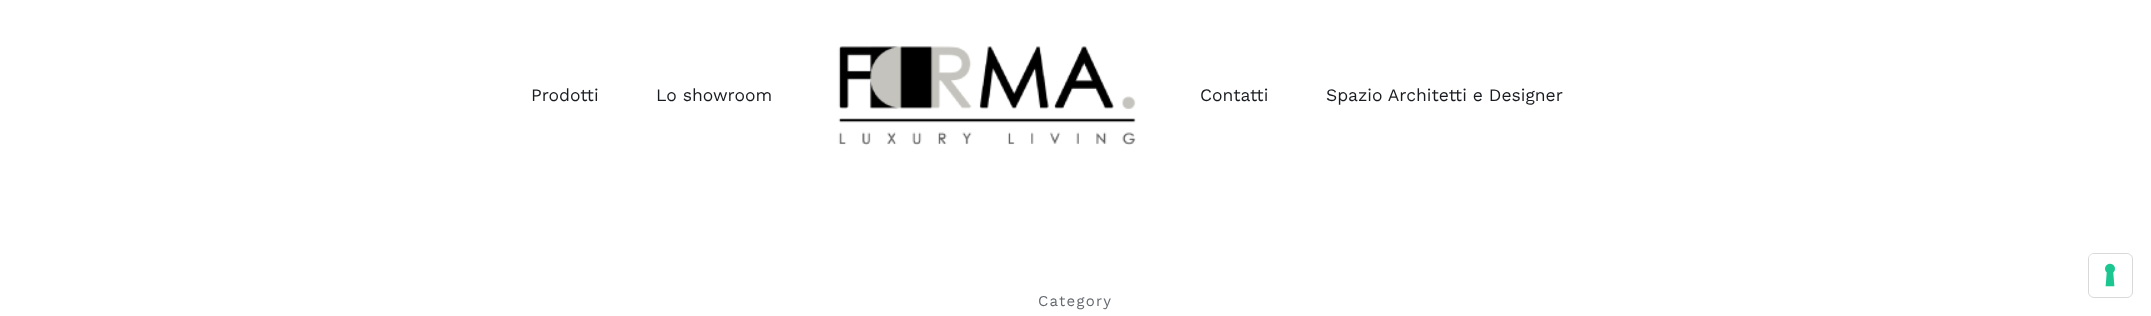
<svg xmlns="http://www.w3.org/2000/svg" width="2151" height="316">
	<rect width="100%" height="100%" fill="#FFFFFF" />
	<g font-family="Work Sans" font-size="17.5" fill="#181B20">
		<text x="531" y="101">Prodotti</text>
		<text x="656" y="101">Lo showroom</text>
	</g>
	<image x="838" y="46" width="298" height="99" href="assets/img1.png" />
	<g font-family="Work Sans" font-size="17.5" fill="#181B20">
		<text x="1200" y="101">Contatti</text>
		<text x="1326" y="101">Spazio Architetti e Designer</text>
	</g>
	<text x="1038" y="306" font-family="Work Sans" font-size="15" letter-spacing="1.25" fill="#656A70">Category</text>
	<rect x="2088.5" y="253.5" width="44" height="44" rx="5.5" fill="none" stroke="#D9D9D9" />
	<rect x="2089" y="254" width="42" height="42" rx="5" fill="#FFFFFF" />
	<image x="2105" y="263" width="10" height="24" href="assets/img2.png" />
</svg>
